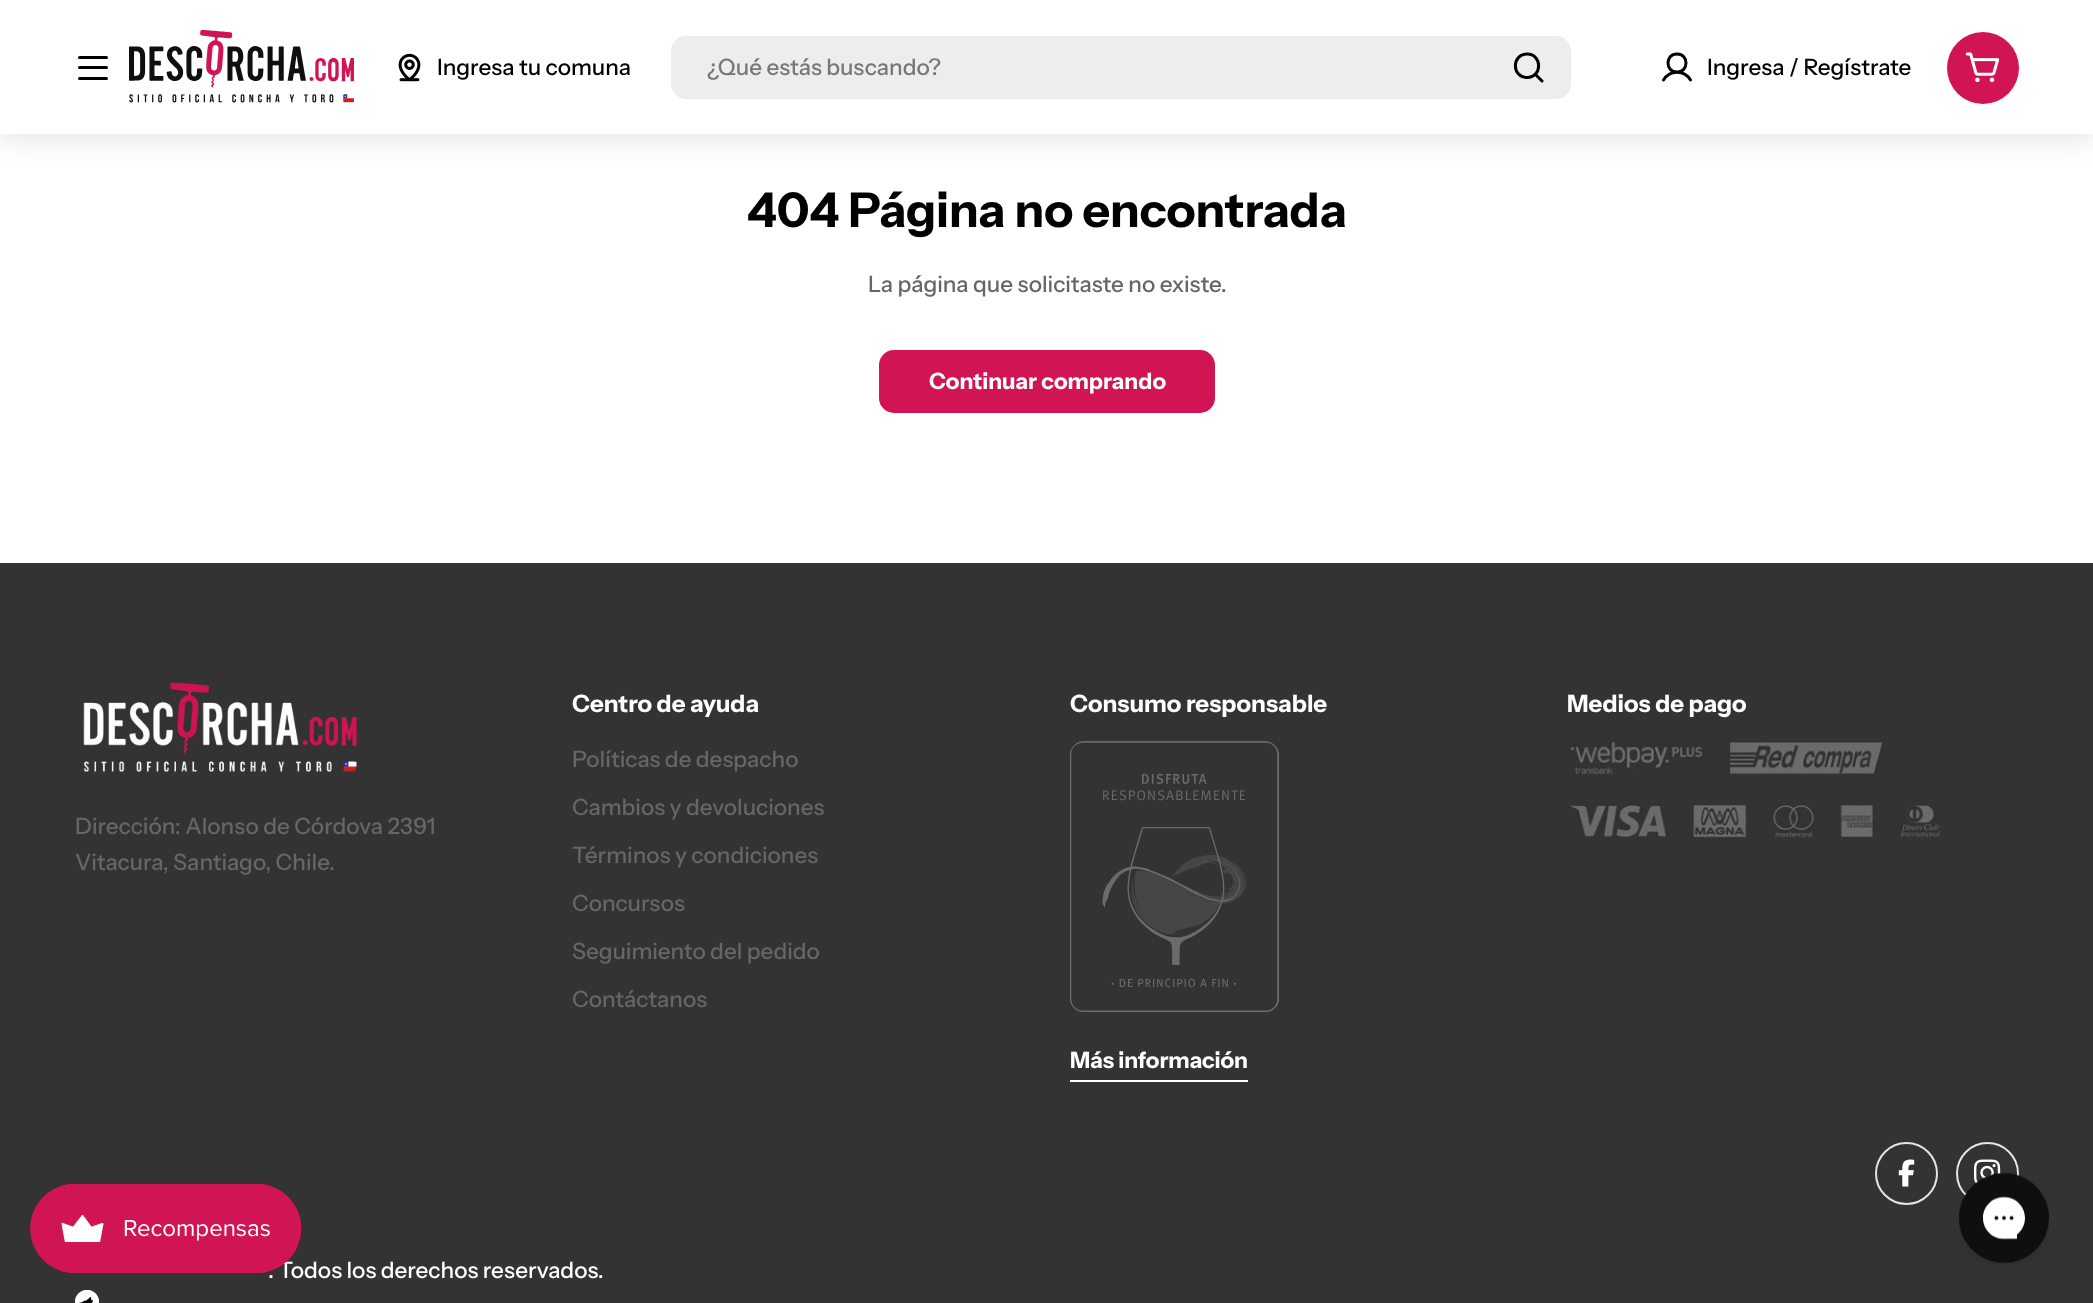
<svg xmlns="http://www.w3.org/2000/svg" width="2093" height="1303">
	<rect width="100%" height="100%" fill="#FFFFFF" />
	<rect x="0" y="6" width="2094" height="134" fill="#000000" fill-opacity="0.1" filter="blur(13.5px)" />
	<rect x="0" y="0" width="2093" height="134" fill="#FFFFFF" />
	<rect x="78" y="66" width="30" height="3" rx="1.5" fill="#000000" />
	<rect x="78" y="56" width="30" height="3" rx="1.5" fill="#000000" />
	<rect x="78" y="77" width="30" height="3" rx="1.5" fill="#000000" />
	<image x="129" y="30" width="225" height="73" href="assets/img1.png" />
	<image x="398" y="53" width="23" height="29" href="assets/img2.png" />
	<text x="437" y="75" font-family="Instrument Sans" font-size="22.5" font-weight="500" fill="#000000">Ingresa tu comuna</text>
	<rect x="671" y="36" width="900" height="63" rx="15" fill="#EDEDED" />
	<text x="707" y="75" font-family="Instrument Sans" font-size="22.5" font-weight="500" fill="#777777">¿Qué estás buscando?</text>
	<path d="M1527 77.5C1542.5 77.5 1542.5 54 1527 54C1511.5 54 1511.5 77.5 1527 77.5ZM1535 74L1542 81" fill="none" stroke="#000000" stroke-width="3" stroke-linecap="round" stroke-linejoin="round" />
	<path d="M1677 72C1689 72 1689 54 1677 54C1665 54 1665 72 1677 72ZM1663.5 80C1669.5 69.5 1684.5 69.5 1690.5 80" fill="none" stroke="#000000" stroke-width="3" stroke-linecap="round" stroke-linejoin="round" />
	<text x="1707" y="75" font-family="Instrument Sans" font-size="22.5" font-weight="500" fill="#000000">Ingresa / Regístrate</text>
	<circle cx="1983" cy="68" r="36" fill="#D11554" />
	<image x="1965" y="52" width="35" height="31" href="assets/img3.png" />
	<text x="747" y="227" font-family="Instrument Sans" font-size="48" font-weight="700" fill="#000000">404 Página no encontrada</text>
	<text x="868" y="292" font-family="Instrument Sans" font-size="22.5" font-weight="500" fill="#666666">La página que solicitaste no existe.</text>
	<rect x="880" y="351" width="334" height="61" rx="14" fill="#D11554" stroke="#D11554" stroke-width="2" />
	<text x="929" y="389" font-family="Instrument Sans" font-size="22.5" font-weight="700" fill="#FFFFFF">Continuar comprando</text>
	<rect x="0" y="563" width="2093" height="740" fill="#333333" />
	<text x="572" y="712" font-family="Instrument Sans" font-size="24" font-weight="700" fill="#FFFFFF">Centro de ayuda</text>
	<g font-family="Instrument Sans" font-size="22.5" font-weight="500" fill="#666666">
		<text x="572" y="767">Políticas de despacho</text>
		<text x="572" y="815">Cambios y devoluciones</text>
		<text x="572" y="863">Términos y condiciones</text>
		<text x="572" y="911">Concursos</text>
		<text x="572" y="959">Seguimiento del pedido</text>
		<text x="572" y="1007">Contáctanos</text>
	</g>
	<text x="1070" y="712" font-family="Instrument Sans" font-size="24" font-weight="700" fill="#FFFFFF">Consumo responsable</text>
	<image x="1070" y="741" width="209" height="271" href="assets/img4.png" />
	<text x="1070" y="1068" font-family="Instrument Sans" font-size="22.5" font-weight="700" fill="#FFFFFF">Más información</text>
	<rect x="1070" y="1080" width="178" height="2" fill="#FFFFFF" />
	<text x="1567" y="712" font-family="Instrument Sans" font-size="24" font-weight="700" fill="#FFFFFF">Medios de pago</text>
	<image x="1568" y="741" width="373" height="98" href="assets/img5.png" />
	<image x="83" y="682" width="274" height="90" href="assets/img6.png" />
	<g font-family="Instrument Sans" font-size="22.5" font-weight="500" fill="#666666">
		<text x="75" y="834">Dirección: Alonso de Córdova 2391</text>
		<text x="75" y="870">Vitacura, Santiago, Chile.</text>
	</g>
	<circle cx="1906.5" cy="1173.5" r="30.5" fill="none" stroke="#E5E5E5" stroke-width="2" />
	<image x="1898" y="1159" width="17" height="28" href="assets/img7.png" />
	<circle cx="1987.5" cy="1173.5" r="30.5" fill="none" stroke="#E5E5E5" stroke-width="2" />
	<image x="1974" y="1159" width="27" height="25" href="assets/img8.png" />
	<text x="268" y="1278" font-family="Instrument Sans" font-size="22.5" font-weight="500" fill="#FFFFFF">. Todos los derechos reservados.</text>
	<image x="75" y="1290" width="24" height="13" href="assets/img9.png" />
	<image x="1959" y="1172" width="90" height="92" href="assets/img10.png" />
	<image x="30" y="1183" width="272" height="91" href="assets/img11.png" />
</svg>
